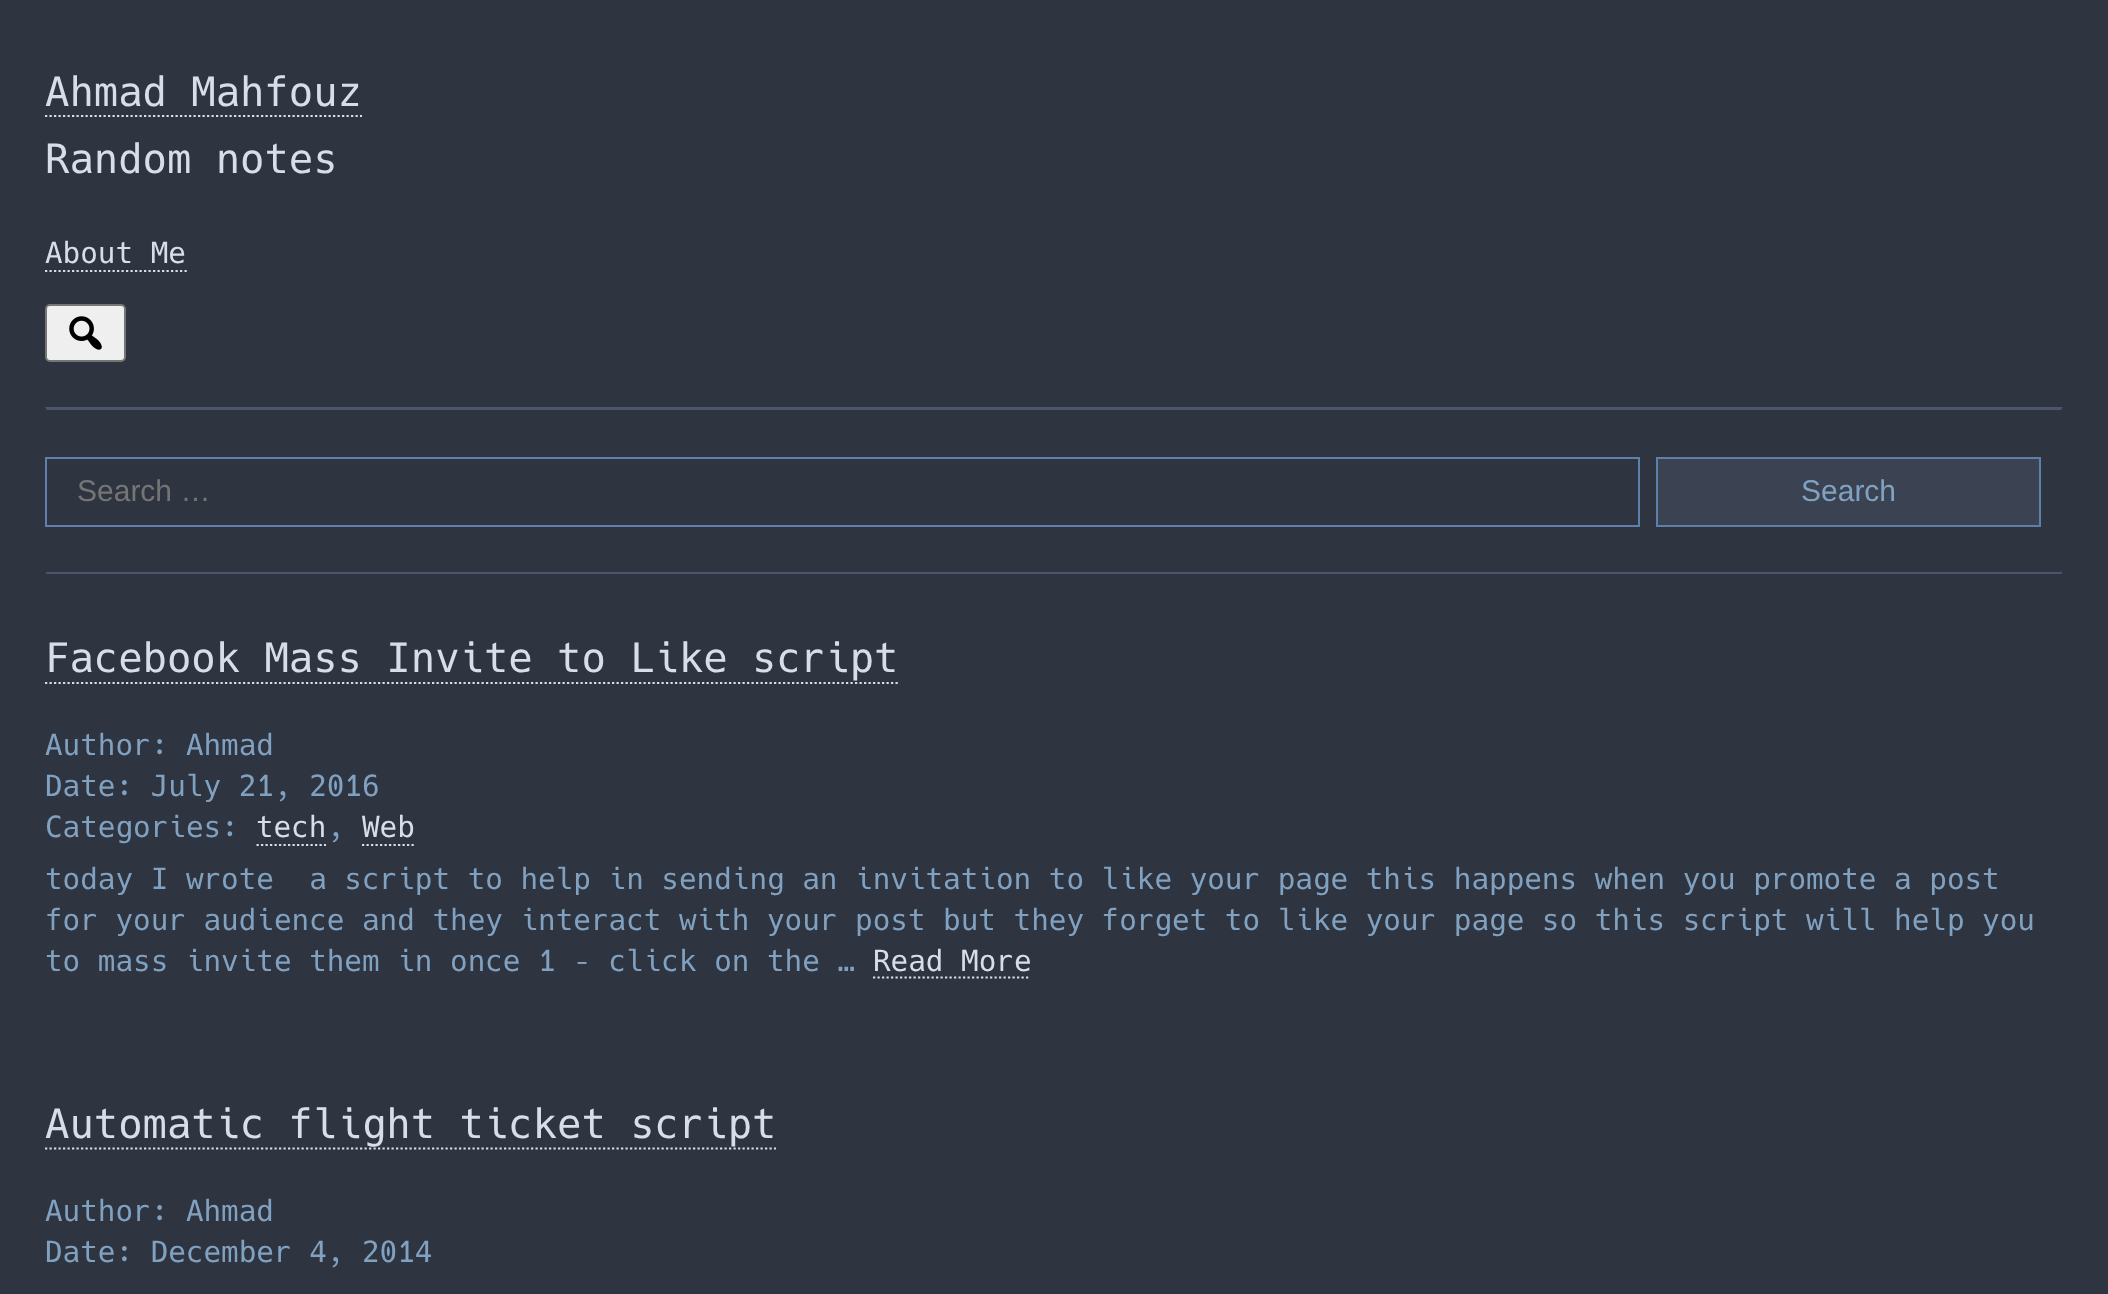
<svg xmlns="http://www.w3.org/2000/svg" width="2108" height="1294">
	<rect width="100%" height="100%" fill="#2E3440" />
	<text x="45" y="106" font-family="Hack" font-size="40.5" fill="#D8DEE9">Ahmad Mahfouz</text>
	<path d="M45 116H362" fill="none" stroke="#D8DEE9" stroke-width="2.2" stroke-dasharray="2.25 2.25" />
	<text x="45" y="173" font-family="Hack" font-size="40.5" fill="#D8DEE9">Random notes</text>
	<text x="45" y="263" font-family="Hack" font-size="29.25" fill="#D8DEE9">About Me</text>
	<path d="M45 271H187" fill="none" stroke="#D8DEE9" stroke-width="2.2" stroke-dasharray="2.25 2.25" />
	<rect x="46" y="305" width="79" height="56" rx="4" fill="#EFEFEF" stroke="#767676" stroke-width="2" />
	<image x="69" y="316" width="33" height="34" href="assets/img1.png" />
	<path d="M45 407H2063L2061 410H47Z" fill="#4C566A" />
	<rect x="46" y="458" width="1593" height="68" fill="none" stroke="#5E81AC" stroke-width="2" />
	<text x="77" y="501" font-family="Liberation Sans" font-size="30" fill="#757575">Search …</text>
	<rect x="1657" y="458" width="383" height="68" fill="#3B4252" stroke="#5E81AC" stroke-width="2" />
	<text x="1801" y="501" font-family="Liberation Sans" font-size="30" fill="#81A1C1">Search</text>
	<path d="M45 572H2063L2061 574H47Z" fill="#4C566A" />
	<text x="45" y="672" font-family="Hack" font-size="40.5" fill="#D8DEE9">Facebook Mass Invite to Like script</text>
	<path d="M45 683H898" fill="none" stroke="#D8DEE9" stroke-width="2.2" stroke-dasharray="2.25 2.25" />
	<g font-family="Hack" font-size="29.25" fill="#81A1C1">
		<text x="45" y="755">Author: Ahmad</text>
		<text x="45" y="796">Date: July 21, 2016</text>
		<text x="45" y="837">Categories:</text>
	</g>
	<text x="256" y="837" font-family="Hack" font-size="29.25" fill="#D8DEE9">tech</text>
	<path d="M256.5 845H326" fill="none" stroke="#D8DEE9" stroke-width="2.2" stroke-dasharray="2.25 2.25" />
	<text x="327" y="837" font-family="Hack" font-size="29.25" fill="#81A1C1">,</text>
	<text x="362" y="837" font-family="Hack" font-size="29.25" fill="#D8DEE9">Web</text>
	<path d="M362 845H414" fill="none" stroke="#D8DEE9" stroke-width="2.2" stroke-dasharray="2.25 2.25" />
	<g font-family="Hack" font-size="29.25" fill="#81A1C1">
		<text x="45" y="889" xml:space="preserve">today I wrote  a script to help in sending an invitation to like your page this happens when you promote a post</text>
		<text x="45" y="930">for your audience and they interact with your post but they forget to like your page so this script will help you</text>
		<text x="45" y="971">to mass invite them in once 1 – click on the …</text>
	</g>
	<text x="873" y="971" font-family="Hack" font-size="29.25" fill="#D8DEE9">Read More</text>
	<path d="M873 977.5H1030.5" fill="none" stroke="#D8DEE9" stroke-width="2.2" stroke-dasharray="2.25 2.25" />
	<text x="45" y="1138" font-family="Hack" font-size="40.5" fill="#D8DEE9">Automatic flight ticket script</text>
	<path d="M45 1148.5H776" fill="none" stroke="#D8DEE9" stroke-width="2.2" stroke-dasharray="2.25 2.25" />
	<g font-family="Hack" font-size="29.25" fill="#81A1C1">
		<text x="45" y="1221">Author: Ahmad</text>
		<text x="45" y="1262">Date: December 4, 2014</text>
	</g>
</svg>
